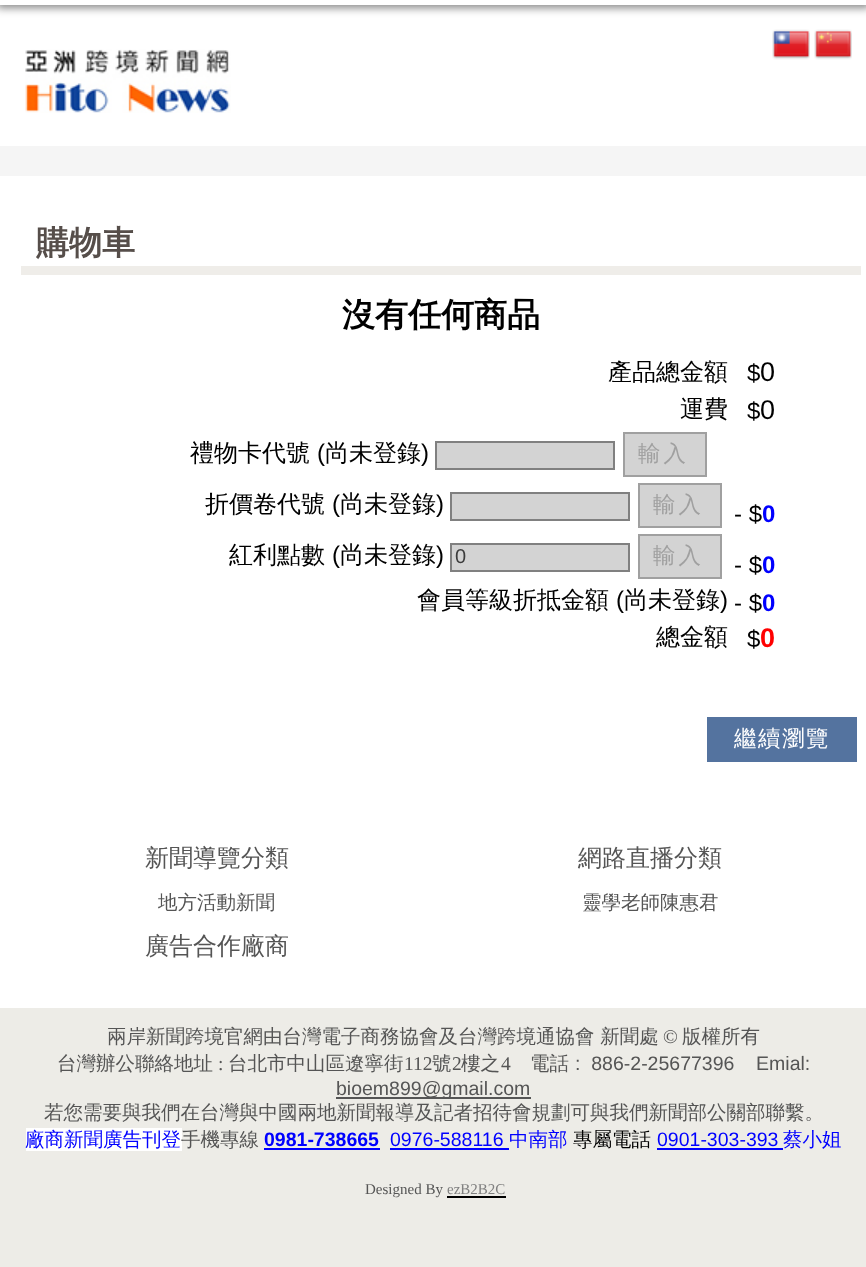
<svg xmlns="http://www.w3.org/2000/svg" width="866" height="1267">
	<rect width="100%" height="100%" fill="#FFFFFF" />
	<rect x="-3" y="-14" width="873" height="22" fill="#000000" fill-opacity="0.47" filter="blur(4.5px)" />
	<rect x="0" y="0" width="866" height="5" fill="#FFFFFF" />
	<image x="772" y="29" width="38" height="31" href="assets/img1.png" />
	<image x="814" y="29" width="38" height="31" href="assets/img2.png" />
	<image x="25" y="49" width="206" height="64" href="assets/img3.png" />
	<rect x="0" y="146" width="866" height="30" fill="#F5F5F5" />
	<rect x="21" y="266" width="840" height="9" fill="#EFEDE9" />
	<text x="36" y="254" font-family="WenQuanYi Zen Hei" font-size="33" font-weight="700" fill="#564E4A">購物車</text>
	<text x="342" y="326" font-family="WenQuanYi Zen Hei" font-size="33" font-weight="700" fill="#000000">沒有任何商品</text>
	<text x="608" y="380" font-family="WenQuanYi Zen Hei" font-size="24" font-weight="500" fill="#000000">產品總金額</text>
	<text x="747" y="381" font-family="Liberation Sans" font-size="24" fill="#000000">$</text>
	<text x="760" y="381" font-family="Liberation Sans" font-size="27" fill="#000000">0</text>
	<text x="680" y="417" font-family="WenQuanYi Zen Hei" font-size="24" font-weight="500" fill="#000000">運費</text>
	<text x="747" y="419" font-family="Liberation Sans" font-size="24" fill="#000000">$</text>
	<text x="760" y="419" font-family="Liberation Sans" font-size="27" fill="#000000">0</text>
	<text x="190" y="461" font-family="WenQuanYi Zen Hei" font-size="24" font-weight="500" fill="#000000">禮物卡代號</text>
	<text x="317" y="461" font-family="Liberation Sans" font-size="24" fill="#000000">(</text>
	<text x="325" y="461" font-family="WenQuanYi Zen Hei" font-size="24" font-weight="500" fill="#000000">尚未登錄</text>
	<text x="421" y="461" font-family="Liberation Sans" font-size="24" fill="#000000">)</text>
	<rect x="436" y="442" width="178" height="27" fill="#D3D3D3" stroke="#808080" stroke-width="2" />
	<rect x="624" y="433" width="82" height="43" fill="#D3D3D3" stroke="#A0A0A0" stroke-width="2" />
	<text x="638" y="461" font-family="WenQuanYi Zen Hei" font-size="22.5" font-weight="500" letter-spacing="3" fill="#A0A0A0">輸入</text>
	<text x="205" y="512" font-family="WenQuanYi Zen Hei" font-size="24" font-weight="500" fill="#000000">折價卷代號</text>
	<text x="332" y="512" font-family="Liberation Sans" font-size="24" fill="#000000">(</text>
	<text x="340" y="512" font-family="WenQuanYi Zen Hei" font-size="24" font-weight="500" fill="#000000">尚未登錄</text>
	<text x="436" y="512" font-family="Liberation Sans" font-size="24" fill="#000000">)</text>
	<rect x="451" y="493" width="178" height="27" fill="#D3D3D3" stroke="#808080" stroke-width="2" />
	<rect x="639" y="484" width="82" height="43" fill="#D3D3D3" stroke="#A0A0A0" stroke-width="2" />
	<text x="653" y="512" font-family="WenQuanYi Zen Hei" font-size="22.5" font-weight="500" letter-spacing="3" fill="#A0A0A0">輸入</text>
	<text x="734" y="522" font-family="Liberation Sans" font-size="24" fill="#000000">- $</text>
	<text x="762" y="522" font-family="Liberation Sans" font-size="24" font-weight="700" fill="#0000FF">0</text>
	<text x="229" y="563" font-family="WenQuanYi Zen Hei" font-size="24" font-weight="500" fill="#000000">紅利點數</text>
	<text x="332" y="563" font-family="Liberation Sans" font-size="24" fill="#000000">(</text>
	<text x="340" y="563" font-family="WenQuanYi Zen Hei" font-size="24" font-weight="500" fill="#000000">尚未登錄</text>
	<text x="436" y="563" font-family="Liberation Sans" font-size="24" fill="#000000">)</text>
	<rect x="451" y="544" width="178" height="27" fill="#D3D3D3" stroke="#808080" stroke-width="2" />
	<text x="455" y="563" font-family="Liberation Sans" font-size="20" fill="#3C3C3C">0</text>
	<rect x="639" y="535" width="82" height="43" fill="#D3D3D3" stroke="#A0A0A0" stroke-width="2" />
	<text x="653" y="563" font-family="WenQuanYi Zen Hei" font-size="22.5" font-weight="500" letter-spacing="3" fill="#A0A0A0">輸入</text>
	<text x="734" y="573" font-family="Liberation Sans" font-size="24" fill="#000000">- $</text>
	<text x="762" y="573" font-family="Liberation Sans" font-size="24" font-weight="700" fill="#0000FF">0</text>
	<text x="417" y="608" font-family="WenQuanYi Zen Hei" font-size="24" font-weight="500" fill="#000000">會員等級折抵金額</text>
	<text x="616" y="608" font-family="Liberation Sans" font-size="24" fill="#000000">(</text>
	<text x="624" y="608" font-family="WenQuanYi Zen Hei" font-size="24" font-weight="500" fill="#000000">尚未登錄</text>
	<g font-family="Liberation Sans" font-size="24" fill="#000000">
		<text x="720" y="608">)</text>
		<text x="734" y="611">- $</text>
	</g>
	<text x="762" y="611" font-family="Liberation Sans" font-size="24" font-weight="700" fill="#0000FF">0</text>
	<text x="656" y="645" font-family="WenQuanYi Zen Hei" font-size="24" font-weight="500" fill="#000000">總金額</text>
	<text x="747" y="647" font-family="Liberation Sans" font-size="24" fill="#000000">$</text>
	<text x="760" y="647" font-family="Liberation Sans" font-size="27" font-weight="700" fill="#FF0000">0</text>
	<rect x="707" y="717" width="150" height="45" fill="#54739F" />
	<text x="734" y="746" font-family="WenQuanYi Zen Hei" font-size="22.5" font-weight="500" letter-spacing="1.5" fill="#FFFFFF">繼續瀏覽</text>
	<text x="145" y="866" font-family="WenQuanYi Zen Hei" font-size="24" font-weight="500" fill="#555555">新聞導覽分類</text>
	<text x="158" y="909" font-family="WenQuanYi Zen Hei" font-size="19.5" font-weight="500" fill="#555555">地方活動新聞</text>
	<text x="578" y="866" font-family="WenQuanYi Zen Hei" font-size="24" font-weight="500" fill="#555555">網路直播分類</text>
	<text x="582" y="909" font-family="WenQuanYi Zen Hei" font-size="19.5" font-weight="500" fill="#555555">靈學老師陳惠君</text>
	<text x="145" y="954" font-family="WenQuanYi Zen Hei" font-size="24" font-weight="500" fill="#555555">廣告合作廠商</text>
	<rect x="0" y="1008" width="866" height="259" fill="#EDECE7" />
	<text x="107" y="1043" font-family="WenQuanYi Zen Hei" font-size="19.5" font-weight="500" fill="#555555">兩岸新聞跨境官網由台灣電子商務協會及台灣跨境通協會 新聞處</text>
	<text x="663" y="1043" font-family="Liberation Serif" font-size="19.5" fill="#555555">©</text>
	<g font-family="WenQuanYi Zen Hei" font-size="19.5" font-weight="500" fill="#555555">
		<text x="682" y="1043">版權所有</text>
		<text x="57" y="1070">台灣辦公聯絡地址</text>
	</g>
	<text x="218" y="1070" font-family="Liberation Serif" font-size="19.5" fill="#555555">:</text>
	<text x="228" y="1070" font-family="WenQuanYi Zen Hei" font-size="19.5" font-weight="500" fill="#555555">台北市中山區遼寧街</text>
	<text x="404" y="1070" font-family="Liberation Serif" font-size="19.5" fill="#555555">112</text>
	<text x="432" y="1070" font-family="WenQuanYi Zen Hei" font-size="19.5" font-weight="500" fill="#555555">號</text>
	<text x="452" y="1070" font-family="Liberation Serif" font-size="19.5" fill="#555555">2</text>
	<text x="461" y="1070" font-family="WenQuanYi Zen Hei" font-size="19.5" font-weight="500" fill="#555555">樓之</text>
	<text x="501" y="1070" font-family="Liberation Serif" font-size="19.5" fill="#555555">4</text>
	<text x="530" y="1070" font-family="WenQuanYi Zen Hei" font-size="19.5" font-weight="500" fill="#555555">電話</text>
	<text x="575" y="1070" font-family="Liberation Sans" font-size="19.5" fill="#555555" xml:space="preserve">:  886-2-25677396    Emial:</text>
	<rect x="336" y="1097" width="195" height="2" fill="#555555" />
	<text x="336" y="1095" font-family="Liberation Sans" font-size="19.5" fill="#555555">bioem899@gmail.com</text>
	<text x="44" y="1119" font-family="WenQuanYi Zen Hei" font-size="19.5" font-weight="500" fill="#555555">若您需要與我們在台灣與中國兩地新聞報導及記者招待會規劃可與我們新聞部公關部聯繫。</text>
	<rect x="26" y="1128" width="156" height="23" fill="#FFFFFF" />
	<text x="25" y="1146" font-family="WenQuanYi Zen Hei" font-size="19.5" font-weight="500" fill="#0000FF">廠商新聞廣告刊登</text>
	<text x="181" y="1146" font-family="WenQuanYi Zen Hei" font-size="19.5" font-weight="500" fill="#555555">手機專線</text>
	<text x="264" y="1146" font-family="Liberation Sans" font-size="19.5" font-weight="700" fill="#0000FF">0981-738665</text>
	<rect x="264" y="1148" width="116" height="2" fill="#0000FF" />
	<text x="390" y="1146" font-family="Liberation Sans" font-size="19.5" fill="#0000FF">0976-588116</text>
	<rect x="390" y="1148" width="119" height="2" fill="#0000FF" />
	<text x="509" y="1146" font-family="WenQuanYi Zen Hei" font-size="19.5" font-weight="500" fill="#0000FF">中南部</text>
	<text x="573" y="1146" font-family="WenQuanYi Zen Hei" font-size="19.5" font-weight="500" fill="#000000">專屬電話</text>
	<text x="657" y="1146" font-family="Liberation Sans" font-size="19.5" fill="#0000FF">0901-303-393</text>
	<rect x="657" y="1148" width="126" height="2" fill="#0000FF" />
	<text x="783" y="1146" font-family="WenQuanYi Zen Hei" font-size="19.5" font-weight="500" fill="#0000FF">蔡小姐</text>
	<text x="365" y="1194" font-family="Liberation Serif" font-size="15" fill="#555555">Designed By</text>
	<text x="447" y="1194" font-family="Liberation Serif" font-size="15" fill="#808080">ezB2B2C</text>
	<rect x="447" y="1196" width="59" height="2" fill="#000000" />
</svg>
